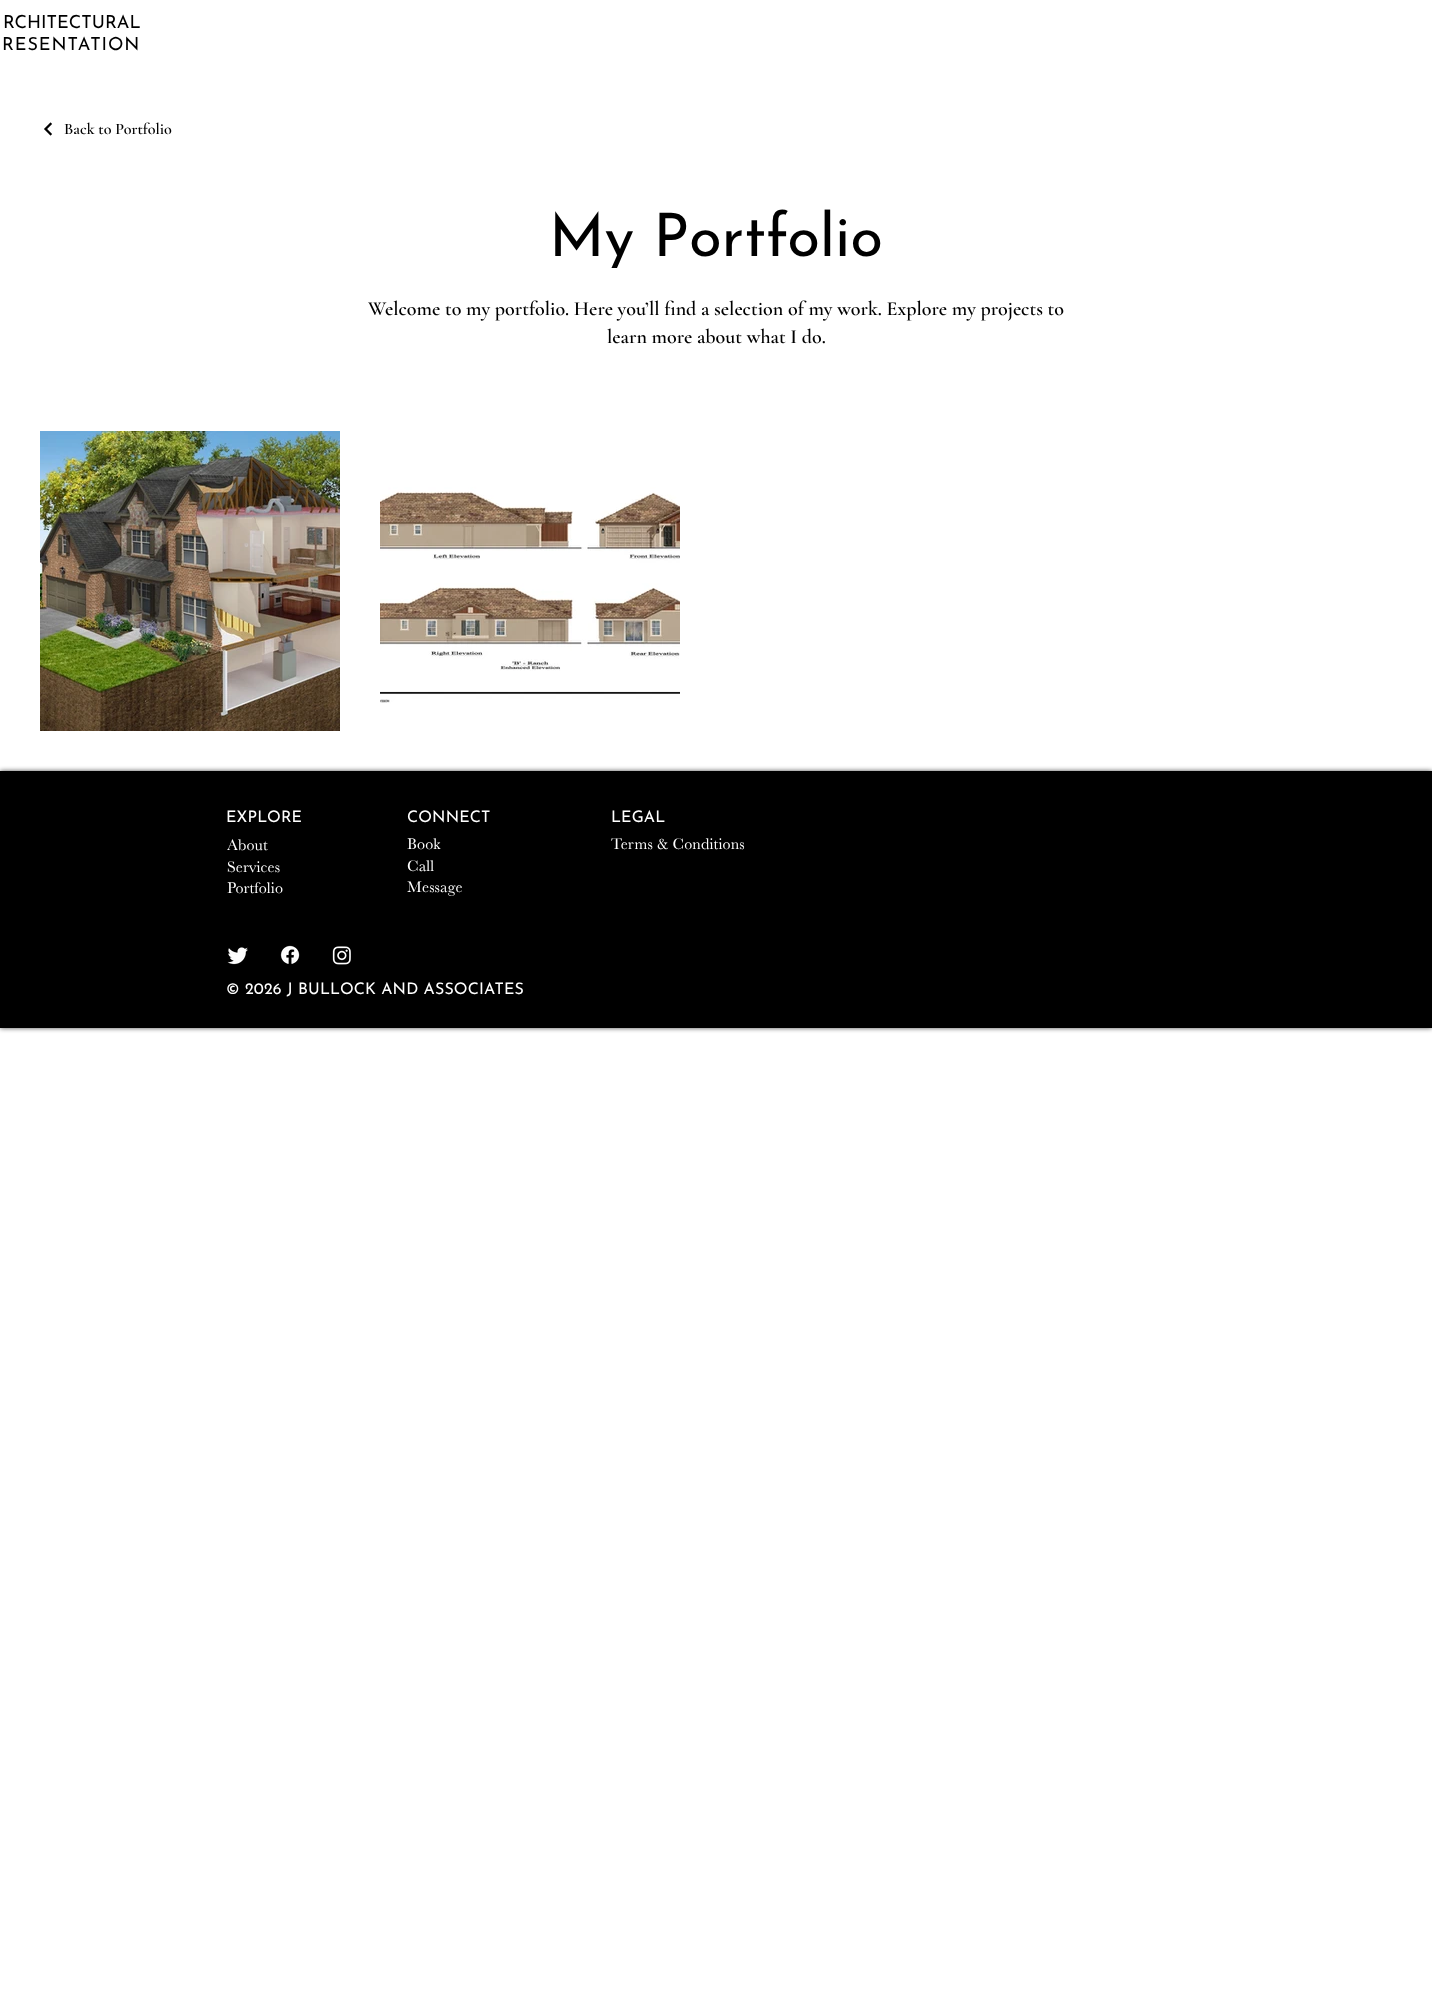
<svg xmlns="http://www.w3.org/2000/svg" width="1432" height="1992">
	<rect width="100%" height="100%" fill="#FFFFFF" />
	<text x="3" y="28" font-family="Josefin Sans" font-size="18" fill="#000000">RCHITECTURAL</text>
	<text x="2" y="50" font-family="Josefin Sans" font-size="18" letter-spacing="0.9" fill="#000000">RESENTATION</text>
	<image x="44" y="122" width="8" height="14" href="assets/img1.png" />
	<text x="64" y="134" font-family="Cormorant Garamond" font-size="16" font-weight="600" fill="#000000">Back to Portfolio</text>
	<text x="549" y="256" font-family="Josefin Sans" font-size="60" fill="#000000">My Portfolio</text>
	<g font-family="Cormorant Garamond" font-size="20" font-weight="600" fill="#000000">
		<text x="368" y="315">Welcome to my portfolio. Here you’ll find a selection of my work. Explore my projects to</text>
		<text x="607" y="343">learn more about what I do.</text>
	</g>
	<image x="40" y="431" width="300" height="300" href="assets/img2.png" />
	<image x="380" y="431" width="300" height="300" href="assets/img3.png" />
	<rect x="0" y="771" width="1432" height="257" fill="#000000" fill-opacity="0.7" filter="blur(2.5px)" />
	<rect x="0" y="771" width="1432" height="257" fill="#000000" />
	<g font-family="Josefin Sans" font-size="16" letter-spacing="0.15" fill="#FFFFFF">
		<text x="226" y="822">EXPLORE</text>
		<text x="407" y="822">CONNECT</text>
		<text x="611" y="822">LEGAL</text>
	</g>
	<g font-family="Baskerville" font-size="16" letter-spacing="0.15" fill="#FFFFFF">
		<text x="227" y="850">About</text>
		<text x="227" y="872">Services</text>
		<text x="227" y="893">Portfolio</text>
		<text x="407" y="849">Book</text>
		<text x="407" y="871">Call</text>
		<text x="407" y="892">Message</text>
		<text x="611" y="849">Terms &amp; Conditions</text>
	</g>
	<image x="227" y="947" width="21" height="18" href="assets/img4.png" />
	<image x="280" y="945" width="20" height="19" href="assets/img5.png" />
	<image x="332" y="946" width="19" height="19" href="assets/img6.png" />
	<text x="226" y="994" font-family="Josefin Sans" font-size="16" letter-spacing="0.15" fill="#FFFFFF">© 2026 J BULLOCK AND ASSOCIATES</text>
</svg>
